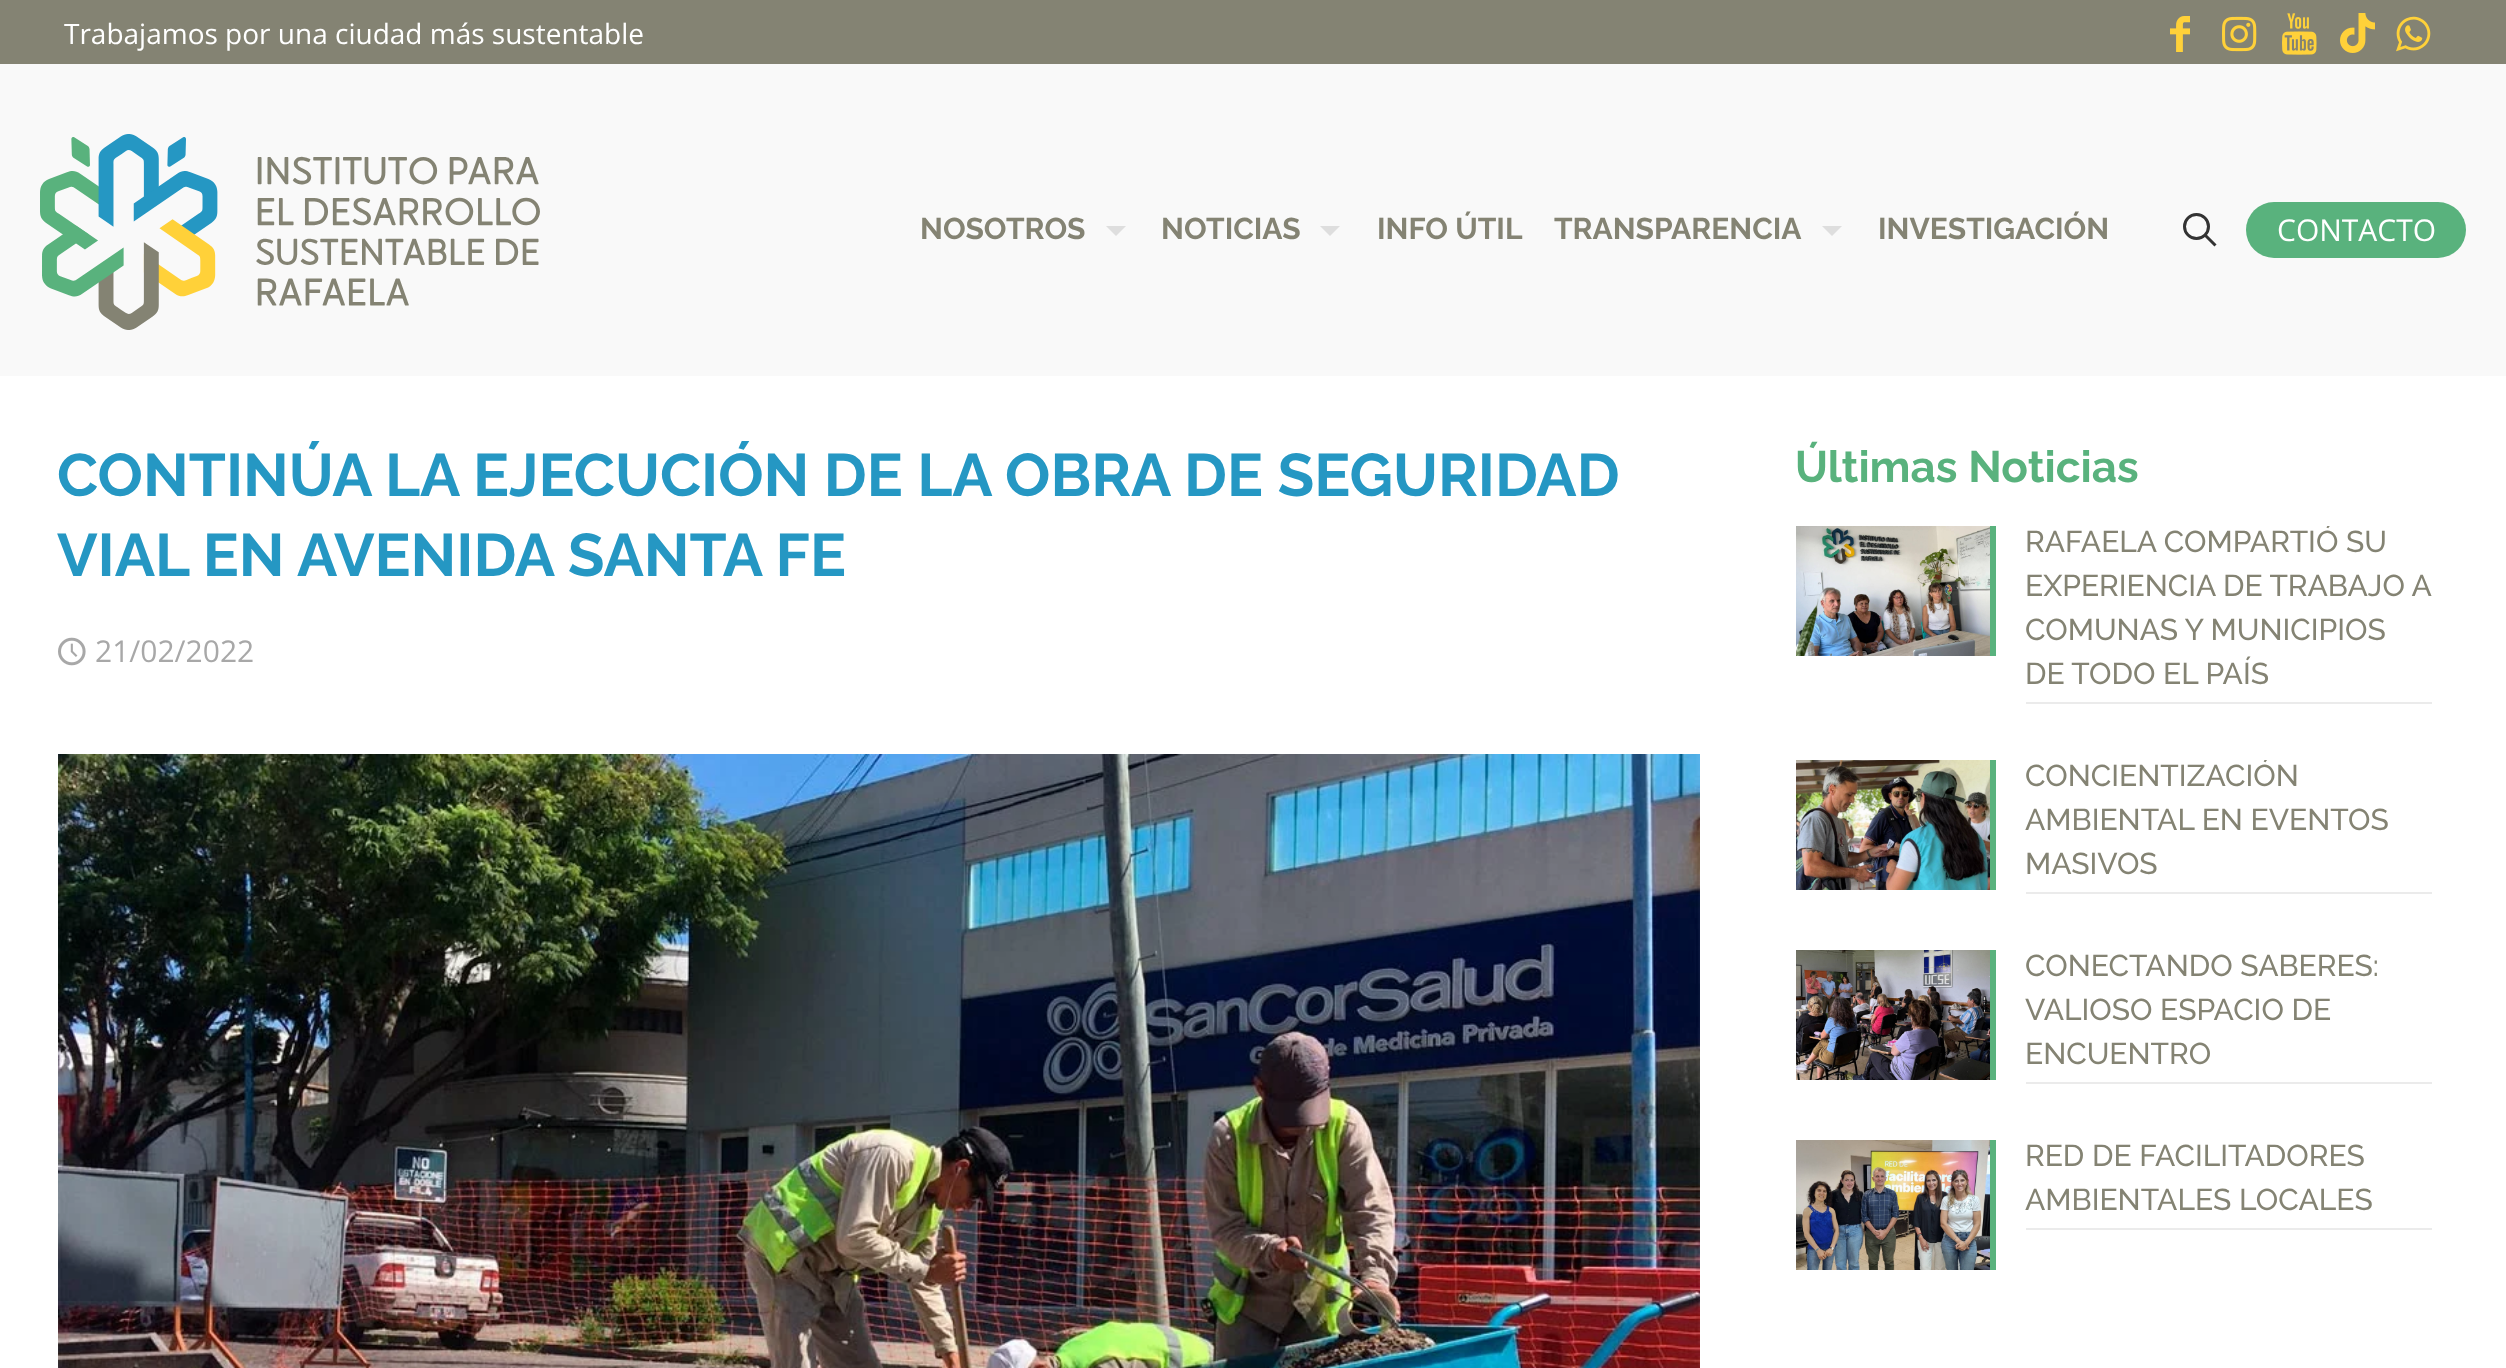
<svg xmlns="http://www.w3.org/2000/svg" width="2506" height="1368">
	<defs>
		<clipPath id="clip1"><rect x="1796" y="526" width="668" height="194" /></clipPath>
		<clipPath id="clip2"><rect x="1796" y="760" width="668" height="150" /></clipPath>
	</defs>
	<rect width="100%" height="100%" fill="#FFFFFF" />
	<rect x="0" y="64" width="2506" height="312" fill="#F9F9F9" />
	<rect x="0" y="0" width="2506" height="64" fill="#848373" />
	<text x="64" y="44" font-family="Open Sans" font-size="28" fill="#FFFFFF">Trabajamos por una ciudad más sustentable</text>
	<image x="2170" y="16" width="20" height="36" href="assets/img1.png" />
	<image x="2222" y="16" width="35" height="36" href="assets/img2.png" />
	<image x="2282" y="13" width="35" height="42" href="assets/img3.png" />
	<image x="2340" y="13" width="35" height="40" href="assets/img4.png" />
	<image x="2396" y="16" width="35" height="36" href="assets/img5.png" />
	<image x="40" y="134" width="500" height="196" href="assets/img6.png" />
	<text x="920" y="239" font-family="Raleway" font-size="30" font-weight="100" fill="#848373">NOSOTROS</text>
	<path d="M1106 226H1126L1116 236Z" fill="#DEDEDE" />
	<text x="1161" y="239" font-family="Raleway" font-size="30" font-weight="100" fill="#848373">NOTICIAS</text>
	<path d="M1320 226H1340L1330 236Z" fill="#DEDEDE" />
	<g font-family="Raleway" font-size="30" font-weight="100" fill="#848373">
		<text x="1377" y="239">INFO ÚTIL</text>
		<text x="1554" y="239">TRANSPARENCIA</text>
	</g>
	<path d="M1822 226H1842L1832 236Z" fill="#DEDEDE" />
	<text x="1878" y="239" font-family="Raleway" font-size="30" font-weight="100" fill="#848373">INVESTIGACIÓN</text>
	<circle cx="2196.5" cy="226.5" r="12" fill="none" stroke="#333333" stroke-width="3" />
	<path d="M2205 235L2215.5 245.5" fill="none" stroke="#333333" stroke-width="3" />
	<rect x="2246" y="202" width="220" height="56" rx="28" fill="#59B27D" />
	<text x="2277" y="241" font-family="Open Sans" font-size="30" fill="#FFFFFF">CONTACTO</text>
	<g font-family="Raleway" font-size="60" font-weight="100" fill="#2597C3">
		<text x="57" y="496">CONTINÚA LA EJECUCIÓN DE LA OBRA DE SEGURIDAD</text>
		<text x="57" y="576">VIAL EN AVENIDA SANTA FE</text>
	</g>
	<image x="58" y="637" width="28" height="29" href="assets/img7.png" />
	<text x="95" y="662" font-family="Open Sans" font-size="30" fill="#A8A8A8">21/02/2022</text>
	<image x="58" y="754" width="1642" height="614" href="assets/img8.png" />
	<text x="1795" y="482" font-family="Raleway" font-size="44" font-weight="100" fill="#59B27D">Últimas Noticias</text>
	<rect x="1990" y="526" width="6" height="130" fill="#59B27D" />
	<image x="1796" y="526" width="194" height="130" href="assets/img9.png" />
	<rect x="2026" y="702" width="406" height="2" fill="#EBEBEB" />
	<g clip-path="url(#clip1)">
		<text x="2025" y="552" font-family="'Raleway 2'" font-size="30" font-weight="100" fill="#848373">RAFAELA COMPARTIÓ SU</text>
	</g>
	<g font-family="'Raleway 2'" font-size="30" font-weight="100" fill="#848373">
		<text x="2025" y="596">EXPERIENCIA DE TRABAJO A</text>
		<text x="2025" y="640">COMUNAS Y MUNICIPIOS</text>
		<text x="2025" y="684">DE TODO EL PAÍS</text>
	</g>
	<rect x="1990" y="760" width="6" height="130" fill="#59B27D" />
	<image x="1796" y="760" width="194" height="130" href="assets/img10.png" />
	<rect x="2026" y="892" width="406" height="2" fill="#EBEBEB" />
	<g clip-path="url(#clip2)">
		<text x="2025" y="786" font-family="'Raleway 2'" font-size="30" font-weight="100" fill="#848373">CONCIENTIZACIÓN</text>
	</g>
	<g font-family="'Raleway 2'" font-size="30" font-weight="100" fill="#848373">
		<text x="2025" y="830">AMBIENTAL EN EVENTOS</text>
		<text x="2025" y="874">MASIVOS</text>
	</g>
	<rect x="1990" y="950" width="6" height="130" fill="#59B27D" />
	<image x="1796" y="950" width="194" height="130" href="assets/img11.png" />
	<rect x="2026" y="1082" width="406" height="2" fill="#EBEBEB" />
	<g font-family="'Raleway 2'" font-size="30" font-weight="100" fill="#848373">
		<text x="2025" y="976">CONECTANDO SABERES:</text>
		<text x="2025" y="1020">VALIOSO ESPACIO DE</text>
		<text x="2025" y="1064">ENCUENTRO</text>
	</g>
	<rect x="1990" y="1140" width="6" height="130" fill="#59B27D" />
	<image x="1796" y="1140" width="194" height="130" href="assets/img12.png" />
	<rect x="2026" y="1228" width="406" height="2" fill="#EBEBEB" />
	<g font-family="'Raleway 2'" font-size="30" font-weight="100" fill="#848373">
		<text x="2025" y="1166">RED DE FACILITADORES</text>
		<text x="2025" y="1210">AMBIENTALES LOCALES</text>
	</g>
</svg>
